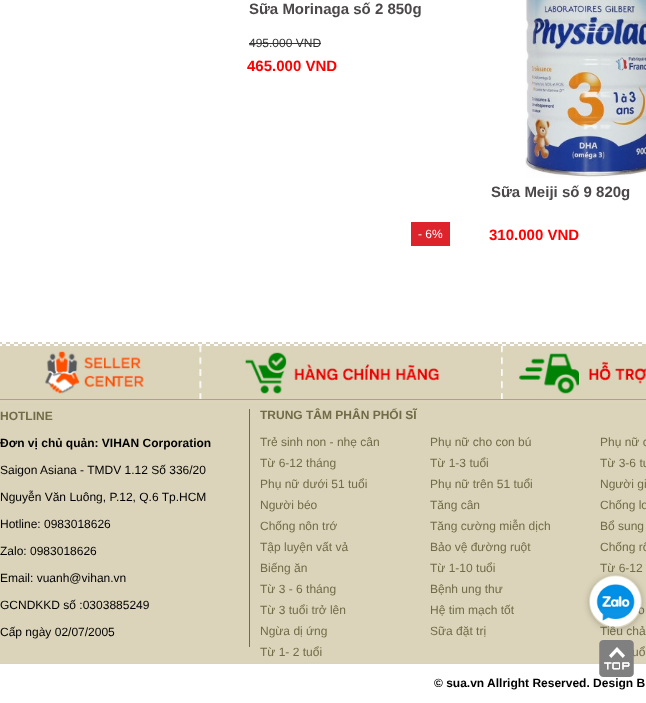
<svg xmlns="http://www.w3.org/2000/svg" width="646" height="703">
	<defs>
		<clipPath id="clip1"><path d="M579 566H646V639H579ZM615.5 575C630 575 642 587 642 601.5C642 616 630 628 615.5 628C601 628 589 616 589 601.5C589 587 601 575 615.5 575Z" clip-rule="evenodd" /></clipPath>
	</defs>
	<rect width="100%" height="100%" fill="#FFFFFF" />
	<text x="249" y="14" font-family="Liberation Sans" font-size="15" font-weight="700" fill="#4C4849">Sữa Morinaga số 2 850g</text>
	<text x="249" y="47" font-family="Liberation Sans" font-size="12" fill="#333333">495.000 VND</text>
	<rect x="249" y="43" width="72" height="1" fill="#333333" />
	<text x="247" y="71" font-family="Liberation Sans" font-size="15" font-weight="700" fill="#FF0000">465.000 VND</text>
	<rect x="411" y="222" width="39" height="24" fill="#DD232B" />
	<text x="418" y="238" font-family="Liberation Sans" font-size="12" fill="#FFFFFF">- 6%</text>
	<image x="525" y="0" width="121" height="178" href="assets/img1.png" />
	<text x="491" y="197" font-family="Liberation Sans" font-size="15" font-weight="700" fill="#4C4849">Sữa Meiji số 9 820g</text>
	<text x="489" y="240" font-family="Liberation Sans" font-size="15" font-weight="700" fill="#FF0000">310.000 VND</text>
	<image x="0" y="342" width="646" height="322" href="assets/img2.png" />
	<image x="0" y="346" width="646" height="53" href="assets/img3.png" />
	<rect x="249" y="409" width="1" height="238" fill="#716C47" />
	<text x="0" y="420" font-family="Liberation Sans" font-size="12" font-weight="700" fill="#716C47">HOTLINE</text>
	<text x="0" y="447" font-family="Liberation Sans" font-size="12" font-weight="700" fill="#000000">Đơn vị chủ quản: VIHAN Corporation</text>
	<g font-family="Liberation Sans" font-size="12" fill="#000000">
		<text x="0" y="474">Saigon Asiana - TMDV 1.12 Số 336/20</text>
		<text x="0" y="501">Nguyễn Văn Luông, P.12, Q.6 Tp.HCM</text>
		<text x="0" y="528">Hotline: 0983018626</text>
		<text x="0" y="555">Zalo: 0983018626</text>
		<text x="0" y="582">Email: vuanh@vihan.vn</text>
		<text x="0" y="609">GCNDKKD số :0303885249</text>
		<text x="0" y="636">Cấp ngày 02/07/2005</text>
	</g>
	<text x="260" y="419" font-family="Liberation Sans" font-size="12" font-weight="700" fill="#716C47">TRUNG TÂM PHÂN PHỐI SĨ</text>
	<g font-family="Liberation Sans" font-size="12" fill="#716C47">
		<text x="260" y="446">Trẻ sinh non - nhẹ cân</text>
		<text x="430" y="446">Phụ nữ cho con bú</text>
		<text x="600" y="446">Phụ nữ c</text>
		<text x="260" y="467">Từ 6-12 tháng</text>
		<text x="430" y="467">Từ 1-3 tuổi</text>
		<text x="600" y="467">Từ 3-6 tu</text>
		<text x="260" y="488">Phụ nữ dưới 51 tuổi</text>
		<text x="430" y="488">Phụ nữ trên 51 tuổi</text>
		<text x="600" y="488">Người gi</text>
		<text x="260" y="509">Người béo</text>
		<text x="430" y="509">Tăng cân</text>
		<text x="600" y="509">Chống lo</text>
		<text x="260" y="530">Chống nôn trớ</text>
		<text x="430" y="530">Tăng cường miễn dịch</text>
		<text x="600" y="530">Bổ sung</text>
		<text x="260" y="551">Tập luyện vất vả</text>
		<text x="430" y="551">Bảo vệ đường ruột</text>
		<text x="600" y="551">Chống rố</text>
		<text x="260" y="572">Biếng ăn</text>
		<text x="430" y="572">Từ 1-10 tuổi</text>
		<text x="600" y="572">Từ 6-12</text>
		<text x="260" y="593">Từ 3 - 6 tháng</text>
		<text x="430" y="593">Bệnh ung thư</text>
		<text x="260" y="614">Từ 3 tuổi trở lên</text>
		<text x="430" y="614">Hệ tim mạch tốt</text>
		<text x="638" y="614">o</text>
		<text x="260" y="635">Ngừa dị ứng</text>
		<text x="430" y="635">Sữa đặt trị</text>
		<text x="600" y="635">Tiêu chả</text>
		<text x="260" y="656">Từ 1- 2 tuổi</text>
		<text x="632" y="656">uổ</text>
	</g>
	<text x="434" y="687" font-family="Liberation Sans" font-size="12" font-weight="700" fill="#000000">© sua.vn Allright Reserved. Design B</text>
	<g clip-path="url(#clip1)">
		<rect x="589" y="576" width="53" height="53" rx="26.5" fill="#202124" fill-opacity="0.28" filter="blur(3px)" />
	</g>
	<image x="589" y="575" width="53" height="52" href="assets/img4.png" />
	<image x="599" y="640" width="35" height="37" href="assets/img5.png" />
</svg>
